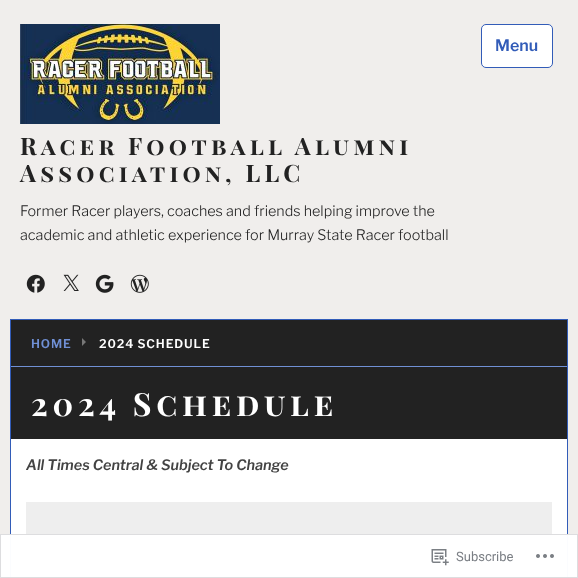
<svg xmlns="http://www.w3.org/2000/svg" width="578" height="578">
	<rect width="100%" height="100%" fill="#F0EEEC" />
	<rect x="481.5" y="24.5" width="71" height="43" rx="4.5" fill="#FFFFFF" stroke="#325CB8" />
	<text x="495" y="51" font-family="Libre Franklin" font-size="16" font-weight="600" fill="#325CB8">Menu</text>
	<image x="20" y="24" width="200" height="100" href="assets/img1.png" />
	<g font-family="Playfair Display SC" font-size="24" font-weight="700" letter-spacing="4.2" fill="#222222">
		<text x="20" y="155">Racer Football Alumni</text>
		<text x="20" y="182">Association, LLC</text>
	</g>
	<g font-family="Libre Franklin" font-size="14.4" font-weight="300" fill="#222222">
		<text x="20" y="216">Former Racer players, coaches and friends helping improve the</text>
		<text x="20" y="240">academic and athletic experience for Murray State Racer football</text>
	</g>
	<image x="26" y="274" width="19" height="19" href="assets/img2.png" />
	<image x="63" y="274" width="16" height="17" href="assets/img3.png" />
	<image x="95" y="274" width="19" height="19" href="assets/img4.png" />
	<image x="130" y="274" width="19" height="19" href="assets/img5.png" />
	<rect x="11" y="439" width="556" height="139" fill="#FFFFFF" />
	<rect x="10.5" y="319.5" width="557" height="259" fill="none" stroke="#325CB8" />
	<rect x="11" y="320" width="556" height="46" fill="#222222" />
	<text x="31" y="348" font-family="Libre Franklin" font-size="12" font-weight="600" letter-spacing="0.9" fill="#7090D5">HOME</text>
	<path d="M82 346V338L86 342Z" fill="#777777" />
	<text x="99" y="348" font-family="Libre Franklin" font-size="12" font-weight="600" letter-spacing="0.9" fill="#FFFFFF">2024 SCHEDULE</text>
	<rect x="11" y="366" width="556" height="1" fill="#7090D5" />
	<rect x="11" y="367" width="556" height="72" fill="#222222" />
	<text x="31" y="416" font-family="Playfair Display SC" font-size="32" font-weight="700" letter-spacing="4.75" fill="#FFFFFF">2024 Schedule</text>
	<text x="26" y="470" font-family="Libre Franklin" font-size="14.4" font-weight="600" font-style="italic" fill="#434343">All Times Central &amp; Subject To Change</text>
	<rect x="26" y="502" width="526" height="76" fill="#EEEEEE" />
	<rect x="0" y="534" width="578" height="44" fill="#FFFFFF" fill-opacity="0.98" />
	<rect x="0.5" y="534.5" width="577" height="43" fill="none" stroke="#DCDCDE" stroke-opacity="0.98" />
	<image x="431" y="549" width="18" height="17" href="assets/img6.png" />
	<text x="456" y="561" font-family="Roboto" font-size="13" fill="#7A7E84">Subscribe</text>
	<image x="536" y="554" width="18" height="4" href="assets/img7.png" />
</svg>
